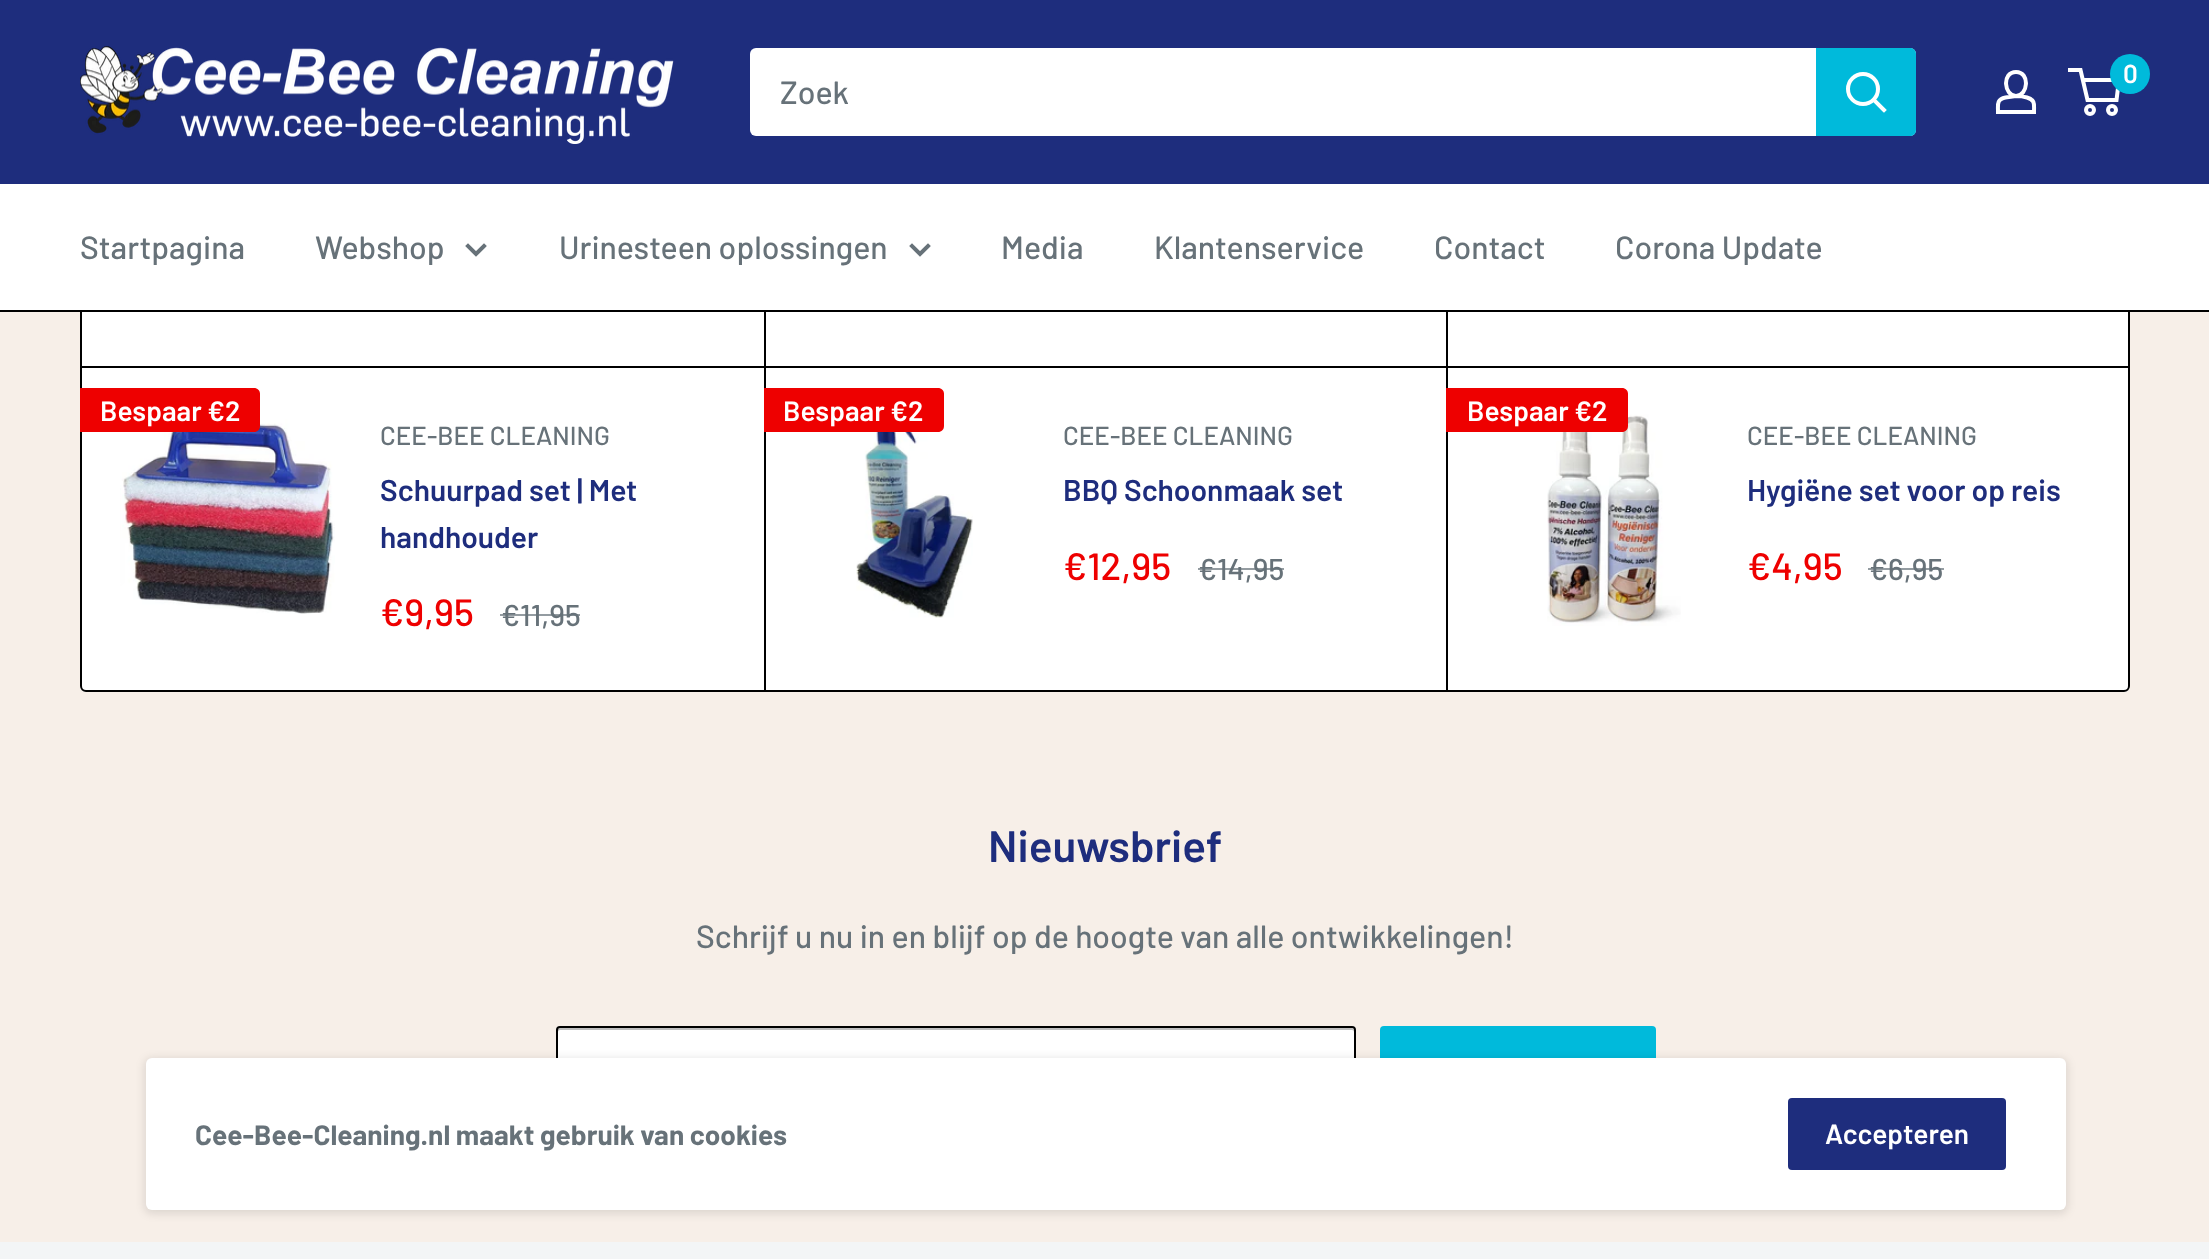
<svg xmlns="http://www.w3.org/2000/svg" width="2209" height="1259">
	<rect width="100%" height="100%" fill="#F7EFE8" />
	<rect x="80" y="42" width="2050" height="650" rx="6" fill="#FFFFFF" />
	<path d="M80 366H764V692H86C82.5 692 80 689.5 80 686Z" fill="#FFFFFF" />
	<image x="120" y="419" width="215" height="195" href="assets/img2.png" />
	<text x="501" y="626" font-family="Barlow" font-size="30" font-weight="500" fill="#677279">€11,95</text>
	<rect x="500" y="614" width="80" height="2" fill="#677279" fill-opacity="0.7" />
	<image x="856" y="406" width="117" height="212" href="assets/img3.png" />
	<text x="1198" y="580" font-family="Barlow" font-size="30" font-weight="500" fill="#677279">€14,95</text>
	<rect x="1198" y="568" width="86" height="2" fill="#677279" fill-opacity="0.7" />
	<path d="M1446 366H2130V686C2130 689.5 2127.5 692 2124 692H1446Z" fill="#FFFFFF" />
	<image x="1547" y="414" width="134" height="212" href="assets/img4.png" />
	<text x="1869" y="580" font-family="Barlow" font-size="30" font-weight="500" fill="#677279">€6,95</text>
	<rect x="1868" y="568" width="76" height="2" fill="#677279" fill-opacity="0.7" />
	<rect x="81" y="43" width="2048" height="648" rx="5" fill="none" stroke="#000000" stroke-width="2" />
	<rect x="0" y="0" width="2209" height="184" fill="#1E2D7D" />
	<image x="80" y="46" width="594" height="98" href="assets/img1.png" />
	<path d="M2016 96C2020 96 2023.5 96.5 2027 97.5C2035.5 100 2034 104.5 2034 112H1998C1998 104 1996.5 99.5 2005.5 97.5ZM2016 96C2004 96 2001.5 72 2016 72C2030.5 72 2028 96 2016 96Z" fill="none" stroke="#FFFFFF" stroke-width="4" />
	<circle cx="2090" cy="110" r="4" fill="none" stroke="#FFFFFF" stroke-width="4" />
	<circle cx="2112" cy="110" r="4" fill="none" stroke="#FFFFFF" stroke-width="4" />
	<path d="M2082.5 80H2119L2116.5 100H2087.5L2080.5 70H2068" fill="none" stroke="#FFFFFF" stroke-width="4" />
	<circle cx="2130" cy="74" r="20" fill="#00BADB" />
	<text x="2123" y="83" font-family="Barlow" font-size="26" font-weight="600" fill="#FFFFFF">0</text>
	<rect x="750" y="48" width="1166" height="88" rx="6" fill="#FFFFFF" />
	<text x="780" y="104" font-family="Barlow" font-size="32" font-weight="500" fill="#677279">Zoek</text>
	<path d="M1816 48H1910C1913.5 48 1916 50.5 1916 54V130C1916 133.5 1913.5 136 1910 136H1816Z" fill="#00BADB" />
	<path d="M1884 110L1874 100" fill="none" stroke="#FFFFFF" stroke-width="4" stroke-linecap="square" />
	<circle cx="1863" cy="89" r="15" fill="none" stroke="#FFFFFF" stroke-width="4" />
	<rect x="0" y="184" width="2209" height="126" fill="#FFFFFF" />
	<rect x="0" y="310" width="2209" height="2" fill="#000000" />
	<g font-family="Barlow" font-size="32" font-weight="500" fill="#677279">
		<text x="80" y="259">Startpagina</text>
		<text x="315" y="259">Webshop</text>
	</g>
	<path d="M484 246L476 254L468 246" fill="none" stroke="#677279" stroke-width="4" stroke-linecap="square" />
	<text x="559" y="259" font-family="Barlow" font-size="32" font-weight="500" fill="#677279">Urinesteen oplossingen</text>
	<path d="M928 246L920 254L912 246" fill="none" stroke="#677279" stroke-width="4" stroke-linecap="square" />
	<g font-family="Barlow" font-size="32" font-weight="500" fill="#677279">
		<text x="1001" y="259">Media</text>
		<text x="1154" y="259">Klantenservice</text>
		<text x="1434" y="259">Contact</text>
		<text x="1615" y="259">Corona Update</text>
	</g>
	<rect x="80" y="366" width="2050" height="2" fill="#000000" />
	<rect x="764" y="312" width="2" height="380" fill="#000000" />
	<path d="M80 388H254C257.5 388 260 390.5 260 394V426C260 429.5 257.5 432 254 432H80Z" fill="#EE0000" />
	<text x="100" y="421" font-family="Barlow" font-size="28" font-weight="600" fill="#FFFFFF">Bespaar €2</text>
	<text x="380" y="445" font-family="Barlow" font-size="26" font-weight="500" fill="#677279">CEE-BEE CLEANING</text>
	<g font-family="Barlow" font-size="30" font-weight="600" fill="#1E2D7D">
		<text x="380" y="501">Schuurpad set | Met</text>
		<text x="380" y="548">handhouder</text>
	</g>
	<text x="380" y="626" font-family="Barlow" font-size="38" font-weight="500" fill="#EE0000">€9,95</text>
	<path d="M764 388H938C941.5 388 944 390.5 944 394V426C944 429.5 941.5 432 938 432H764Z" fill="#EE0000" />
	<text x="783" y="421" font-family="Barlow" font-size="28" font-weight="600" fill="#FFFFFF">Bespaar €2</text>
	<text x="1063" y="445" font-family="Barlow" font-size="26" font-weight="500" fill="#677279">CEE-BEE CLEANING</text>
	<text x="1063" y="501" font-family="Barlow" font-size="30" font-weight="600" fill="#1E2D7D">BBQ Schoonmaak set</text>
	<text x="1063" y="580" font-family="Barlow" font-size="38" font-weight="500" fill="#EE0000">€12,95</text>
	<rect x="1446" y="312" width="2" height="380" fill="#000000" />
	<path d="M1446 388H1622C1625.5 388 1628 390.5 1628 394V426C1628 429.5 1625.5 432 1622 432H1446Z" fill="#EE0000" />
	<text x="1467" y="421" font-family="Barlow" font-size="28" font-weight="600" fill="#FFFFFF">Bespaar €2</text>
	<text x="1747" y="445" font-family="Barlow" font-size="26" font-weight="500" fill="#677279">CEE-BEE CLEANING</text>
	<text x="1747" y="501" font-family="Barlow" font-size="30" font-weight="600" fill="#1E2D7D">Hygiëne set voor op reis</text>
	<text x="1747" y="580" font-family="Barlow" font-size="38" font-weight="500" fill="#EE0000">€4,95</text>
	<text x="988" y="862" font-family="Barlow" font-size="44" font-weight="600" fill="#1E2D7D">Nieuwsbrief</text>
	<text x="696" y="948" font-family="Barlow" font-size="32" font-weight="500" fill="#677279">Schrijf u nu in en blijf op de hoogte van alle ontwikkelingen!</text>
	<rect x="556" y="1026" width="800" height="96" rx="4" fill="#FFFFFF" />
	<path d="M560 1030H1352C1353 1030 1354 1031 1354 1032C1354 1031 1354 1029 1353 1029L1352 1028H560L558 1029V1032C558 1031 559 1030 560 1030Z" fill="#BFBFBF" />
	<rect x="557" y="1027" width="798" height="94" rx="3" fill="none" stroke="#000000" stroke-width="2" />
	<rect x="1380" y="1026" width="276" height="96" rx="4" fill="#00BADB" />
	<rect x="0" y="1242" width="2209" height="17" fill="#F3F5F6" />
	<rect x="144" y="1058" width="1924" height="156" rx="8" fill="#000000" fill-opacity="0.1" filter="blur(4px)" />
	<rect x="146" y="1058" width="1920" height="152" rx="6" fill="#FFFFFF" />
	<text x="195" y="1145" font-family="Barlow" font-size="28" font-weight="700" fill="#677279">Cee-Bee-Cleaning.nl maakt gebruik van cookies</text>
	<rect x="1788" y="1098" width="218" height="72" rx="4" fill="#1E2D7D" />
	<text x="1825" y="1144" font-family="Barlow" font-size="28" font-weight="600" fill="#FFFFFF">Accepteren</text>
</svg>
